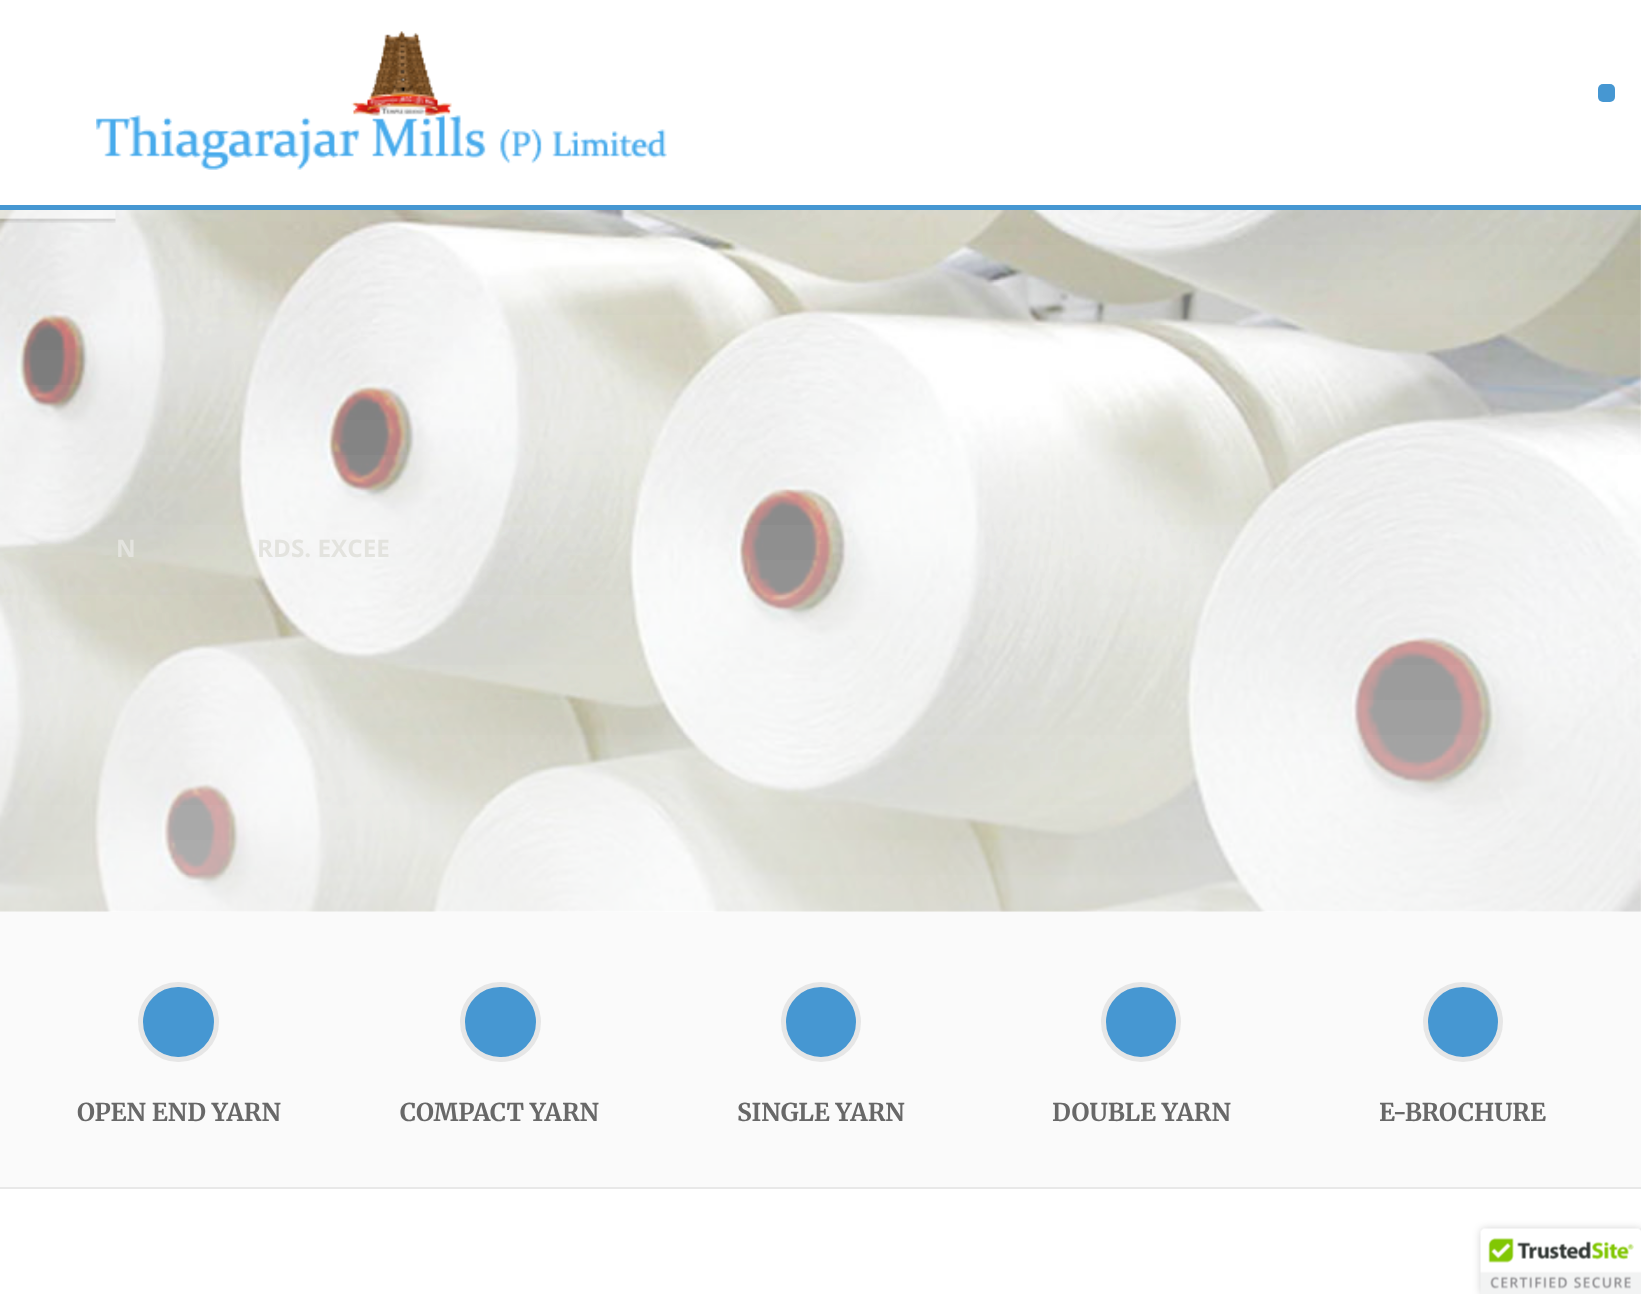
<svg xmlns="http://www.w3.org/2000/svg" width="1641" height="1294">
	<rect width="100%" height="100%" fill="#FFFFFF" />
	<rect x="0" y="205" width="1641" height="5" fill="#4697D2" />
	<image x="96" y="31" width="571" height="139" href="assets/img1.png" />
	<rect x="1598" y="84" width="17" height="18" rx="5" fill="#4697D2" />
	<image x="0" y="210" width="1641" height="35" href="assets/img2.png" />
	<image x="0" y="245" width="1641" height="35" href="assets/img3.png" />
	<image x="0" y="280" width="1641" height="35" href="assets/img4.png" />
	<image x="0" y="315" width="1641" height="35" href="assets/img5.png" />
	<image x="0" y="350" width="1641" height="35" href="assets/img6.png" />
	<image x="0" y="385" width="1641" height="35" href="assets/img7.png" />
	<image x="0" y="420" width="1641" height="35" href="assets/img8.png" />
	<image x="0" y="455" width="1618" height="35" href="assets/img9.png" />
	<image x="0" y="490" width="1641" height="35" href="assets/img10.png" />
	<image x="0" y="525" width="1641" height="35" href="assets/img11.png" />
	<image x="0" y="560" width="1641" height="35" href="assets/img12.png" />
	<image x="0" y="595" width="1641" height="35" href="assets/img13.png" />
	<image x="0" y="630" width="1641" height="35" href="assets/img14.png" />
	<image x="0" y="665" width="1641" height="35" href="assets/img15.png" />
	<image x="0" y="700" width="1641" height="35" href="assets/img16.png" />
	<image x="0" y="735" width="1641" height="35" href="assets/img17.png" />
	<image x="0" y="770" width="1641" height="35" href="assets/img18.png" />
	<image x="0" y="805" width="1641" height="35" href="assets/img19.png" />
	<image x="0" y="840" width="1641" height="35" href="assets/img20.png" />
	<image x="0" y="875" width="1641" height="35" href="assets/img21.png" />
	<image x="0" y="910" width="1641" height="2" href="assets/img22.png" />
	<image x="0" y="210" width="116" height="13" href="assets/img23.png" />
	<g font-family="Open Sans" font-size="24.25" font-weight="700" fill="#E3E3DE">
		<text x="116" y="557">N</text>
		<text x="257" y="557">RDS. EXCEE</text>
	</g>
	<rect x="0" y="912" width="1641" height="275" fill="#FAFAFA" />
	<rect x="0" y="1187" width="1641" height="2" fill="#E8E8E8" />
	<rect x="140.5" y="984.5" width="76" height="75" rx="37.5" fill="#4697D2" stroke="#E6E6E6" stroke-width="5" />
	<text x="77" y="1121" font-family="Merriweather" font-size="24.5" font-weight="700" fill="#686868">OPEN END YARN</text>
	<rect x="462.5" y="984.5" width="76" height="75" rx="37.5" fill="#4697D2" stroke="#E6E6E6" stroke-width="5" />
	<text x="400" y="1121" font-family="Merriweather" font-size="24.5" font-weight="700" fill="#686868">COMPACT YARN</text>
	<circle cx="821" cy="1022" r="37.5" fill="#4697D2" stroke="#E6E6E6" stroke-width="5" />
	<text x="737" y="1121" font-family="Merriweather" font-size="24.5" font-weight="700" fill="#686868">SINGLE YARN</text>
	<circle cx="1141" cy="1022" r="37.5" fill="#4697D2" stroke="#E6E6E6" stroke-width="5" />
	<text x="1052" y="1121" font-family="Merriweather" font-size="24.5" font-weight="700" fill="#686868">DOUBLE YARN</text>
	<circle cx="1463" cy="1022" r="37.5" fill="#4697D2" stroke="#E6E6E6" stroke-width="5" />
	<text x="1379" y="1121" font-family="Merriweather" font-size="24.5" font-weight="700" fill="#686868">E-BROCHURE</text>
	<rect x="1481" y="1229" width="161" height="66" rx="4" fill="#030303" fill-opacity="0.2" filter="blur(4.5px)" />
	<image x="1480" y="1228" width="161" height="66" href="assets/img24.png" />
</svg>
